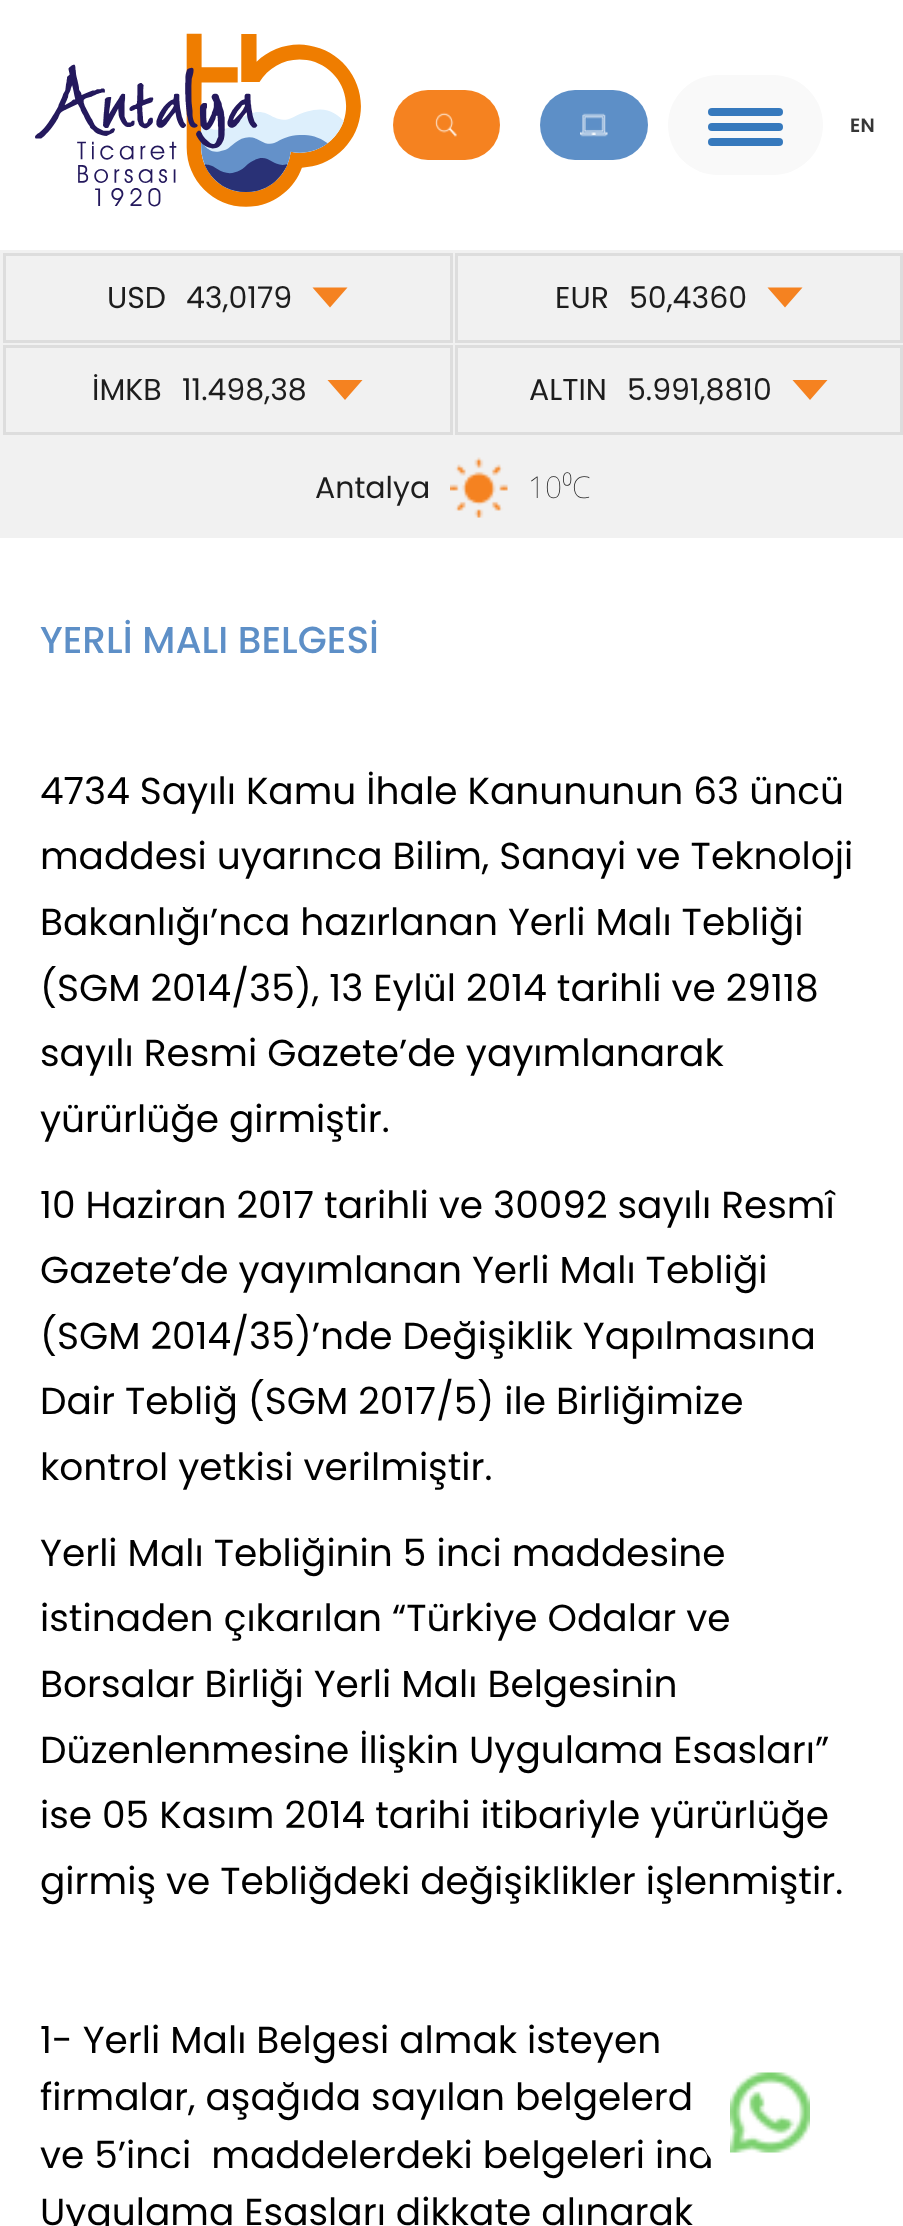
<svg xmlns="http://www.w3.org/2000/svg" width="903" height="2226">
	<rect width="100%" height="100%" fill="#FFFFFF" />
	<image x="35" y="33" width="326" height="174" href="assets/img1.png" />
	<rect x="393" y="90" width="107" height="70" rx="35" fill="#F58220" />
	<image x="435" y="112" width="22" height="25" href="assets/img2.png" />
	<rect x="540" y="90" width="108" height="70" rx="35" fill="#5D8FC7" />
	<image x="580" y="113" width="28" height="24" href="assets/img3.png" />
	<rect x="668" y="75" width="155" height="100" rx="50" fill="#F9F9F9" />
	<rect x="708" y="108" width="75" height="8" rx="4" fill="#3679BD" />
	<rect x="708" y="123" width="75" height="8" rx="4" fill="#3679BD" />
	<rect x="708" y="138" width="75" height="8" rx="4" fill="#3679BD" />
	<image x="851" y="118" width="23" height="14" href="assets/img4.png" />
	<rect x="0" y="250" width="903" height="288" fill="#F1F1F1" />
	<rect x="4.5" y="254.5" width="447" height="87" fill="none" stroke="#DDDDDD" stroke-width="3" />
	<g font-family="Poppins" font-size="30" fill="#1D1D1D">
		<text x="107" y="308">USD</text>
		<text x="186" y="308">43,0179</text>
	</g>
	<path d="M312.5 287.5H347.5L330 307.5Z" fill="#F58220" />
	<rect x="456.5" y="254.5" width="445" height="87" fill="none" stroke="#DDDDDD" stroke-width="3" />
	<g font-family="Poppins" font-size="30" fill="#1D1D1D">
		<text x="555" y="308">EUR</text>
		<text x="629" y="308">50,4360</text>
	</g>
	<path d="M767.5 287.5H802.5L785 307.5Z" fill="#F58220" />
	<rect x="4.5" y="346.5" width="447" height="87" fill="none" stroke="#DDDDDD" stroke-width="3" />
	<g font-family="Poppins" font-size="30" fill="#1D1D1D">
		<text x="92" y="400">İMKB</text>
		<text x="182" y="400">11.498,38</text>
	</g>
	<path d="M327.5 380H362.5L345 400Z" fill="#F58220" />
	<rect x="456.5" y="346.5" width="445" height="87" fill="none" stroke="#DDDDDD" stroke-width="3" />
	<g font-family="Poppins" font-size="30" fill="#1D1D1D">
		<text x="529" y="400">ALTIN</text>
		<text x="627" y="400">5.991,8810</text>
	</g>
	<path d="M792.5 380H827.5L810 400Z" fill="#F58220" />
	<text x="315" y="498" font-family="Poppins" font-size="30" fill="#1D1D1D">Antalya</text>
	<image x="450" y="457" width="58" height="61" href="assets/img5.png" />
	<text x="528" y="498" font-family="Noto Sans" font-size="30" font-weight="100" fill="#1D1D1D">10⁰C</text>
	<text x="40" y="653" font-family="Poppins" font-size="37.5" font-weight="500" fill="#5D8FC7">YERLİ MALI BELGESİ</text>
	<g font-family="Poppins" font-size="37.5" fill="#000000">
		<text x="40" y="804">4734 Sayılı Kamu İhale Kanununun 63 üncü</text>
		<text x="40" y="869">maddesi uyarınca Bilim, Sanayi ve Teknoloji</text>
		<text x="40" y="935">Bakanlığı’nca hazırlanan Yerli Malı Tebliği</text>
		<text x="40" y="1001">(SGM 2014/35), 13 Eylül 2014 tarihli ve 29118</text>
		<text x="40" y="1066">sayılı Resmi Gazete’de yayımlanarak</text>
		<text x="40" y="1132">yürürlüğe girmiştir.</text>
		<text x="40" y="1218">10 Haziran 2017 tarihli ve 30092 sayılı Resmî</text>
		<text x="40" y="1283">Gazete’de yayımlanan Yerli Malı Tebliği</text>
		<text x="40" y="1349">(SGM 2014/35)’nde Değişiklik Yapılmasına</text>
		<text x="40" y="1414">Dair Tebliğ (SGM 2017/5) ile Birliğimize</text>
		<text x="40" y="1480">kontrol yetkisi verilmiştir.</text>
		<text x="40" y="1566">Yerli Malı Tebliğinin 5 inci maddesine</text>
		<text x="40" y="1631">istinaden çıkarılan “Türkiye Odalar ve</text>
		<text x="40" y="1697">Borsalar Birliği Yerli Malı Belgesinin</text>
		<text x="40" y="1763">Düzenlenmesine İlişkin Uygulama Esasları”</text>
		<text x="40" y="1828">ise 05 Kasım 2014 tarihi itibariyle yürürlüğe</text>
		<text x="40" y="1894">girmiş ve Tebliğdeki değişiklikler işlenmiştir.</text>
		<text x="40" y="2053">1- Yerli Malı Belgesi almak isteyen</text>
		<text x="40" y="2110">firmalar, aşağıda sayılan belgelerd</text>
		<text x="40" y="2168" xml:space="preserve">ve 5’inci  maddelerdeki belgeleri ind</text>
		<text x="40" y="2225">Uygulama Esasları dikkate alınarak</text>
	</g>
	<circle cx="770" cy="2113" r="75" fill="#FFFFFF" />
	<image x="730" y="2072" width="80" height="81" href="assets/img6.png" />
</svg>
